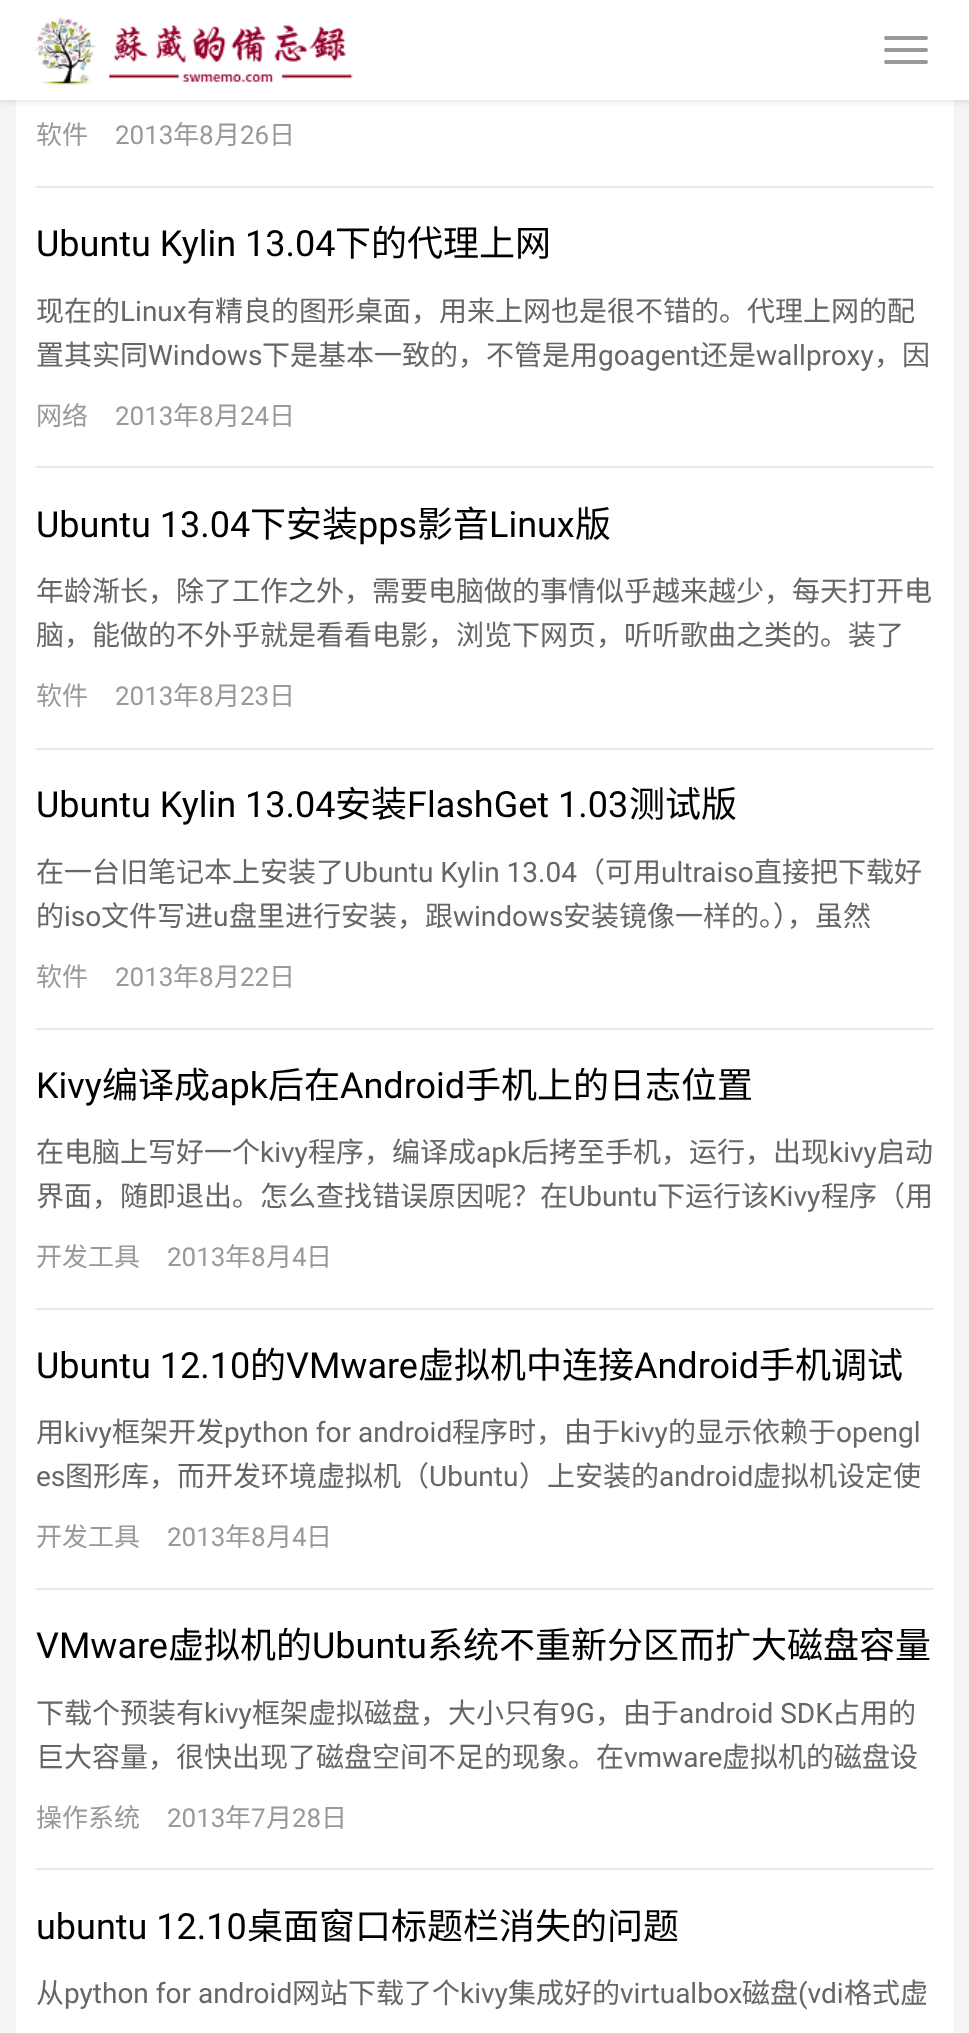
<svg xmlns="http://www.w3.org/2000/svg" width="969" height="2033">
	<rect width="100%" height="100%" fill="#F5F5F5" />
	<rect x="16" y="100" width="938" height="1933" fill="#FFFFFF" />
	<rect x="-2" y="-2" width="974" height="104" fill="#000000" fill-opacity="0.1" filter="blur(3px)" />
	<rect x="0" y="0" width="969" height="100" fill="#FFFFFF" />
	<image x="35" y="17" width="318" height="68" href="assets/img1.png" />
	<rect x="884" y="36" width="44" height="4" rx="2" fill="#999999" />
	<rect x="884" y="48" width="44" height="4" rx="2" fill="#999999" />
	<rect x="884" y="60" width="44" height="4" rx="2" fill="#999999" />
	<rect x="36" y="186" width="898" height="2" fill="#E9E9E9" />
	<text x="36" y="144" font-family="Noto Sans CJK SC" font-size="26" fill="#999999">软件</text>
	<text x="115" y="144" font-family="Roboto" font-size="26" fill="#999999">2013</text>
	<text x="173" y="144" font-family="Noto Sans CJK SC" font-size="26" fill="#999999">年</text>
	<text x="199" y="144" font-family="Roboto" font-size="26" fill="#999999">8</text>
	<text x="214" y="144" font-family="Noto Sans CJK SC" font-size="26" fill="#999999">月</text>
	<text x="240" y="144" font-family="Roboto" font-size="26" fill="#999999">26</text>
	<text x="269" y="144" font-family="Noto Sans CJK SC" font-size="26" fill="#999999">日</text>
	<rect x="36" y="466" width="898" height="2" fill="#E9E9E9" />
	<text x="36" y="256" font-family="Roboto" font-size="36" fill="#000000">Ubuntu Kylin 13.04</text>
	<text x="335" y="256" font-family="Noto Sans CJK SC" font-size="36" fill="#000000">下的代理上网</text>
	<text x="36" y="321" font-family="Noto Sans CJK SC" font-size="28" fill="#666666">现在的</text>
	<text x="120" y="321" font-family="Roboto" font-size="28" fill="#666666">Linux</text>
	<g font-family="Noto Sans CJK SC" font-size="28" fill="#666666">
		<text x="187" y="321">有精良的图形桌面，用来上网也是很不错的。代理上网的配</text>
		<text x="36" y="365">置其实同</text>
	</g>
	<text x="148" y="365" font-family="Roboto" font-size="28" fill="#666666">Windows</text>
	<text x="262" y="365" font-family="Noto Sans CJK SC" font-size="28" fill="#666666">下是基本一致的，不管是用</text>
	<text x="598" y="365" font-family="Roboto" font-size="28" fill="#666666">goagent</text>
	<text x="700" y="365" font-family="Noto Sans CJK SC" font-size="28" fill="#666666">还是</text>
	<text x="756" y="365" font-family="Roboto" font-size="28" fill="#666666">wallproxy</text>
	<text x="874" y="365" font-family="Noto Sans CJK SC" font-size="28" fill="#666666">，因</text>
	<text x="36" y="425" font-family="Noto Sans CJK SC" font-size="26" fill="#999999">网络</text>
	<text x="115" y="425" font-family="Roboto" font-size="26" fill="#999999">2013</text>
	<text x="173" y="425" font-family="Noto Sans CJK SC" font-size="26" fill="#999999">年</text>
	<text x="199" y="425" font-family="Roboto" font-size="26" fill="#999999">8</text>
	<text x="214" y="425" font-family="Noto Sans CJK SC" font-size="26" fill="#999999">月</text>
	<text x="240" y="425" font-family="Roboto" font-size="26" fill="#999999">24</text>
	<text x="269" y="425" font-family="Noto Sans CJK SC" font-size="26" fill="#999999">日</text>
	<rect x="36" y="748" width="898" height="2" fill="#E9E9E9" />
	<text x="36" y="537" font-family="Roboto" font-size="36" fill="#000000">Ubuntu 13.04</text>
	<text x="250" y="537" font-family="Noto Sans CJK SC" font-size="36" fill="#000000">下安装</text>
	<text x="358" y="537" font-family="Roboto" font-size="36" fill="#000000">pps</text>
	<text x="417" y="537" font-family="Noto Sans CJK SC" font-size="36" fill="#000000">影音</text>
	<text x="489" y="537" font-family="Roboto" font-size="36" fill="#000000">Linux</text>
	<text x="575" y="537" font-family="Noto Sans CJK SC" font-size="36" fill="#000000">版</text>
	<g font-family="Noto Sans CJK SC" font-size="28" fill="#666666">
		<text x="36" y="601">年龄渐长，除了工作之外，需要电脑做的事情似乎越来越少，每天打开电</text>
		<text x="36" y="645">脑，能做的不外乎就是看看电影，浏览下网页，听听歌曲之类的。装了</text>
	</g>
	<text x="36" y="705" font-family="Noto Sans CJK SC" font-size="26" fill="#999999">软件</text>
	<text x="115" y="705" font-family="Roboto" font-size="26" fill="#999999">2013</text>
	<text x="173" y="705" font-family="Noto Sans CJK SC" font-size="26" fill="#999999">年</text>
	<text x="199" y="705" font-family="Roboto" font-size="26" fill="#999999">8</text>
	<text x="214" y="705" font-family="Noto Sans CJK SC" font-size="26" fill="#999999">月</text>
	<text x="240" y="705" font-family="Roboto" font-size="26" fill="#999999">23</text>
	<text x="269" y="705" font-family="Noto Sans CJK SC" font-size="26" fill="#999999">日</text>
	<rect x="36" y="1028" width="898" height="2" fill="#E9E9E9" />
	<text x="36" y="817" font-family="Roboto" font-size="36" fill="#000000">Ubuntu Kylin 13.04</text>
	<text x="335" y="817" font-family="Noto Sans CJK SC" font-size="36" fill="#000000">安装</text>
	<text x="407" y="817" font-family="Roboto" font-size="36" fill="#000000">FlashGet 1.03</text>
	<text x="629" y="817" font-family="Noto Sans CJK SC" font-size="36" fill="#000000">测试版</text>
	<text x="36" y="882" font-family="Noto Sans CJK SC" font-size="28" fill="#666666">在一台旧笔记本上安装了</text>
	<text x="344" y="882" font-family="Roboto" font-size="28" fill="#666666">Ubuntu Kylin 13.04</text>
	<text x="577" y="882" font-family="Noto Sans CJK SC" font-size="28" fill="#666666">（可用</text>
	<text x="661" y="882" font-family="Roboto" font-size="28" fill="#666666">ultraiso</text>
	<g font-family="Noto Sans CJK SC" font-size="28" fill="#666666">
		<text x="754" y="882">直接把下载好</text>
		<text x="36" y="926">的</text>
	</g>
	<text x="64" y="926" font-family="Roboto" font-size="28" fill="#666666">iso</text>
	<text x="101" y="926" font-family="Noto Sans CJK SC" font-size="28" fill="#666666">文件写进</text>
	<text x="213" y="926" font-family="Roboto" font-size="28" fill="#666666">u</text>
	<text x="229" y="926" font-family="Noto Sans CJK SC" font-size="28" fill="#666666">盘里进行安装，跟</text>
	<text x="453" y="926" font-family="Roboto" font-size="28" fill="#666666">windows</text>
	<text x="563" y="926" font-family="Noto Sans CJK SC" font-size="28" fill="#666666">安装镜像一样的。），虽然</text>
	<text x="36" y="986" font-family="Noto Sans CJK SC" font-size="26" fill="#999999">软件</text>
	<text x="115" y="986" font-family="Roboto" font-size="26" fill="#999999">2013</text>
	<text x="173" y="986" font-family="Noto Sans CJK SC" font-size="26" fill="#999999">年</text>
	<text x="199" y="986" font-family="Roboto" font-size="26" fill="#999999">8</text>
	<text x="214" y="986" font-family="Noto Sans CJK SC" font-size="26" fill="#999999">月</text>
	<text x="240" y="986" font-family="Roboto" font-size="26" fill="#999999">22</text>
	<text x="269" y="986" font-family="Noto Sans CJK SC" font-size="26" fill="#999999">日</text>
	<rect x="36" y="1308" width="898" height="2" fill="#E9E9E9" />
	<text x="36" y="1098" font-family="Roboto" font-size="36" fill="#000000">Kivy</text>
	<text x="102" y="1098" font-family="Noto Sans CJK SC" font-size="36" fill="#000000">编译成</text>
	<text x="210" y="1098" font-family="Roboto" font-size="36" fill="#000000">apk</text>
	<text x="268" y="1098" font-family="Noto Sans CJK SC" font-size="36" fill="#000000">后在</text>
	<text x="340" y="1098" font-family="Roboto" font-size="36" fill="#000000">Android</text>
	<text x="465" y="1098" font-family="Noto Sans CJK SC" font-size="36" fill="#000000">手机上的日志位置</text>
	<text x="36" y="1162" font-family="Noto Sans CJK SC" font-size="28" fill="#666666">在电脑上写好一个</text>
	<text x="260" y="1162" font-family="Roboto" font-size="28" fill="#666666">kivy</text>
	<text x="308" y="1162" font-family="Noto Sans CJK SC" font-size="28" fill="#666666">程序，编译成</text>
	<text x="476" y="1162" font-family="Roboto" font-size="28" fill="#666666">apk</text>
	<text x="521" y="1162" font-family="Noto Sans CJK SC" font-size="28" fill="#666666">后拷至手机，运行，出现</text>
	<text x="829" y="1162" font-family="Roboto" font-size="28" fill="#666666">kivy</text>
	<g font-family="Noto Sans CJK SC" font-size="28" fill="#666666">
		<text x="877" y="1162">启动</text>
		<text x="36" y="1206">界面，随即退出。怎么查找错误原因呢？在</text>
	</g>
	<text x="568" y="1206" font-family="Roboto" font-size="28" fill="#666666">Ubuntu</text>
	<text x="657" y="1206" font-family="Noto Sans CJK SC" font-size="28" fill="#666666">下运行该</text>
	<text x="769" y="1206" font-family="Roboto" font-size="28" fill="#666666">Kivy</text>
	<text x="821" y="1206" font-family="Noto Sans CJK SC" font-size="28" fill="#666666">程序（用</text>
	<text x="36" y="1266" font-family="Noto Sans CJK SC" font-size="26" fill="#999999">开发工具</text>
	<text x="167" y="1266" font-family="Roboto" font-size="26" fill="#999999">2013</text>
	<text x="225" y="1266" font-family="Noto Sans CJK SC" font-size="26" fill="#999999">年</text>
	<text x="251" y="1266" font-family="Roboto" font-size="26" fill="#999999">8</text>
	<text x="266" y="1266" font-family="Noto Sans CJK SC" font-size="26" fill="#999999">月</text>
	<text x="292" y="1266" font-family="Roboto" font-size="26" fill="#999999">4</text>
	<text x="306" y="1266" font-family="Noto Sans CJK SC" font-size="26" fill="#999999">日</text>
	<rect x="36" y="1588" width="898" height="2" fill="#E9E9E9" />
	<text x="36" y="1378" font-family="Roboto" font-size="36" fill="#000000">Ubuntu 12.10</text>
	<text x="250" y="1378" font-family="Noto Sans CJK SC" font-size="36" fill="#000000">的</text>
	<text x="286" y="1378" font-family="Roboto" font-size="36" fill="#000000">VMware</text>
	<text x="418" y="1378" font-family="Noto Sans CJK SC" font-size="36" fill="#000000">虚拟机中连接</text>
	<text x="634" y="1378" font-family="Roboto" font-size="36" fill="#000000">Android</text>
	<text x="759" y="1378" font-family="Noto Sans CJK SC" font-size="36" fill="#000000">手机调试</text>
	<text x="36" y="1442" font-family="Noto Sans CJK SC" font-size="28" fill="#666666">用</text>
	<text x="64" y="1442" font-family="Roboto" font-size="28" fill="#666666">kivy</text>
	<text x="112" y="1442" font-family="Noto Sans CJK SC" font-size="28" fill="#666666">框架开发</text>
	<text x="224" y="1442" font-family="Roboto" font-size="28" fill="#666666">python for android</text>
	<text x="452" y="1442" font-family="Noto Sans CJK SC" font-size="28" fill="#666666">程序时，由于</text>
	<text x="620" y="1442" font-family="Roboto" font-size="28" fill="#666666">kivy</text>
	<text x="668" y="1442" font-family="Noto Sans CJK SC" font-size="28" fill="#666666">的显示依赖于</text>
	<g font-family="Roboto" font-size="28" fill="#666666">
		<text x="836" y="1442">opengl</text>
		<text x="36" y="1486">es</text>
	</g>
	<text x="65" y="1486" font-family="Noto Sans CJK SC" font-size="28" fill="#666666">图形库，而开发环境虚拟机（</text>
	<text x="429" y="1486" font-family="Roboto" font-size="28" fill="#666666">Ubuntu</text>
	<text x="519" y="1486" font-family="Noto Sans CJK SC" font-size="28" fill="#666666">）上安装的</text>
	<text x="659" y="1486" font-family="Roboto" font-size="28" fill="#666666">android</text>
	<text x="753" y="1486" font-family="Noto Sans CJK SC" font-size="28" fill="#666666">虚拟机设定使</text>
	<text x="36" y="1546" font-family="Noto Sans CJK SC" font-size="26" fill="#999999">开发工具</text>
	<text x="167" y="1546" font-family="Roboto" font-size="26" fill="#999999">2013</text>
	<text x="225" y="1546" font-family="Noto Sans CJK SC" font-size="26" fill="#999999">年</text>
	<text x="251" y="1546" font-family="Roboto" font-size="26" fill="#999999">8</text>
	<text x="266" y="1546" font-family="Noto Sans CJK SC" font-size="26" fill="#999999">月</text>
	<text x="292" y="1546" font-family="Roboto" font-size="26" fill="#999999">4</text>
	<text x="306" y="1546" font-family="Noto Sans CJK SC" font-size="26" fill="#999999">日</text>
	<rect x="36" y="1868" width="898" height="2" fill="#E9E9E9" />
	<text x="36" y="1658" font-family="Roboto" font-size="36" fill="#000000">VMware</text>
	<text x="168" y="1658" font-family="Noto Sans CJK SC" font-size="36" fill="#000000">虚拟机的</text>
	<text x="312" y="1658" font-family="Roboto" font-size="36" fill="#000000">Ubuntu</text>
	<text x="427" y="1658" font-family="Noto Sans CJK SC" font-size="36" fill="#000000">系统不重新分区而扩大磁盘容量</text>
	<text x="36" y="1723" font-family="Noto Sans CJK SC" font-size="28" fill="#666666">下载个预装有</text>
	<text x="204" y="1723" font-family="Roboto" font-size="28" fill="#666666">kivy</text>
	<text x="252" y="1723" font-family="Noto Sans CJK SC" font-size="28" fill="#666666">框架虚拟磁盘，大小只有</text>
	<text x="560" y="1723" font-family="Roboto" font-size="28" fill="#666666">9G</text>
	<text x="595" y="1723" font-family="Noto Sans CJK SC" font-size="28" fill="#666666">，由于</text>
	<text x="679" y="1723" font-family="Roboto" font-size="28" fill="#666666">android SDK</text>
	<g font-family="Noto Sans CJK SC" font-size="28" fill="#666666">
		<text x="832" y="1723">占用的</text>
		<text x="36" y="1767">巨大容量，很快出现了磁盘空间不足的现象。在</text>
	</g>
	<text x="624" y="1767" font-family="Roboto" font-size="28" fill="#666666">vmware</text>
	<text x="722" y="1767" font-family="Noto Sans CJK SC" font-size="28" fill="#666666">虚拟机的磁盘设</text>
	<text x="36" y="1827" font-family="Noto Sans CJK SC" font-size="26" fill="#999999">操作系统</text>
	<text x="167" y="1827" font-family="Roboto" font-size="26" fill="#999999">2013</text>
	<text x="225" y="1827" font-family="Noto Sans CJK SC" font-size="26" fill="#999999">年</text>
	<text x="251" y="1827" font-family="Roboto" font-size="26" fill="#999999">7</text>
	<text x="266" y="1827" font-family="Noto Sans CJK SC" font-size="26" fill="#999999">月</text>
	<text x="292" y="1827" font-family="Roboto" font-size="26" fill="#999999">28</text>
	<text x="321" y="1827" font-family="Noto Sans CJK SC" font-size="26" fill="#999999">日</text>
	<text x="36" y="1939" font-family="Roboto" font-size="36" fill="#000000">ubuntu 12.10</text>
	<text x="247" y="1939" font-family="Noto Sans CJK SC" font-size="36" fill="#000000">桌面窗口标题栏消失的问题</text>
	<text x="36" y="2003" font-family="Noto Sans CJK SC" font-size="28" fill="#666666">从</text>
	<text x="64" y="2003" font-family="Roboto" font-size="28" fill="#666666">python for android</text>
	<text x="292" y="2003" font-family="Noto Sans CJK SC" font-size="28" fill="#666666">网站下载了个</text>
	<text x="460" y="2003" font-family="Roboto" font-size="28" fill="#666666">kivy</text>
	<text x="508" y="2003" font-family="Noto Sans CJK SC" font-size="28" fill="#666666">集成好的</text>
	<text x="620" y="2003" font-family="Roboto" font-size="28" fill="#666666">virtualbox</text>
	<text x="742" y="2003" font-family="Noto Sans CJK SC" font-size="28" fill="#666666">磁盘</text>
	<text x="798" y="2003" font-family="Roboto" font-size="28" fill="#666666">(vdi</text>
	<text x="844" y="2003" font-family="Noto Sans CJK SC" font-size="28" fill="#666666">格式虚</text>
</svg>
